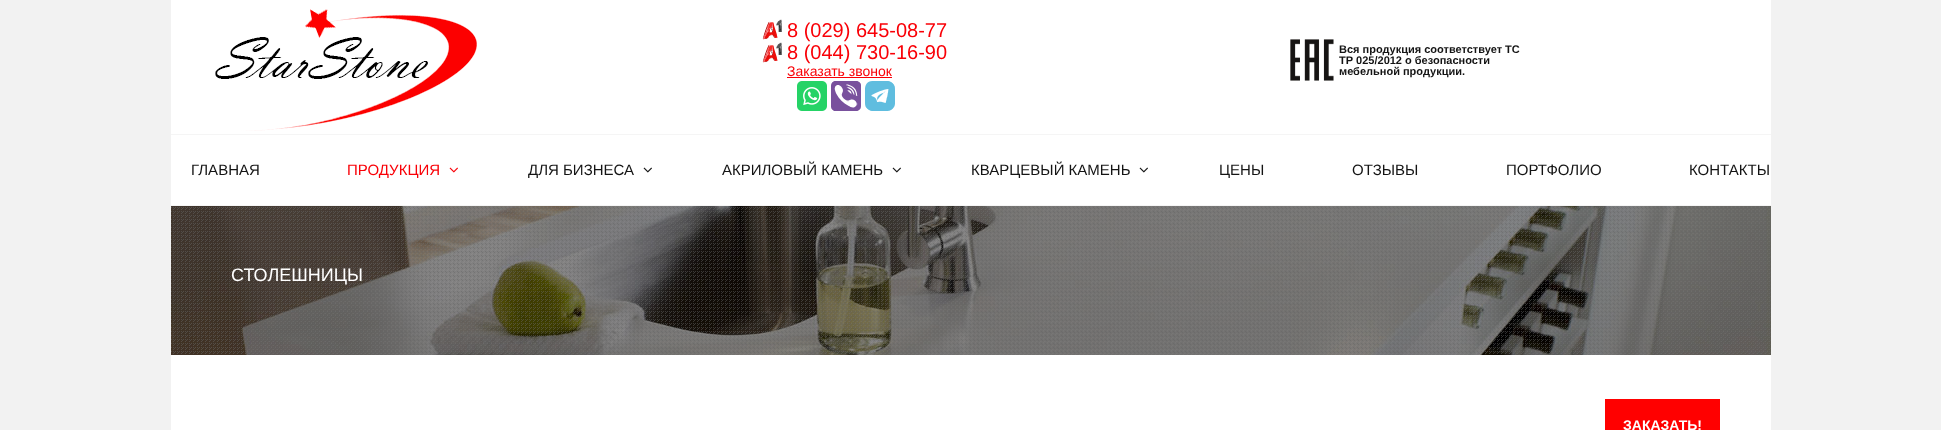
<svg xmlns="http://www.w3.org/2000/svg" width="1941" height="430">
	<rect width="100%" height="100%" fill="#F2F2F2" />
	<rect x="171" y="0" width="1600" height="430" fill="#FFFFFF" />
	<rect x="171" y="134" width="1600" height="1" fill="#F5F5F5" />
	<image x="215" y="9" width="262" height="122" href="assets/img1.png" />
	<image x="762" y="19" width="20" height="21" href="assets/img2.png" />
	<text x="787" y="37" font-family="Liberation Sans" font-size="20" fill="#F90007">8 (029) 645-08-77</text>
	<image x="762" y="42" width="20" height="21" href="assets/img2.png" />
	<text x="787" y="59" font-family="Liberation Sans" font-size="20" fill="#F90007">8 (044) 730-16-90</text>
	<text x="787" y="76" font-family="Liberation Sans" font-size="14" fill="#F90007">Заказать звонок</text>
	<rect x="787" y="77" width="105" height="1" fill="#F90007" />
	<image x="797" y="81" width="30" height="30" href="assets/img3.png" />
	<image x="831" y="81" width="30" height="30" href="assets/img4.png" />
	<image x="865" y="81" width="30" height="30" href="assets/img5.png" />
	<image x="1290" y="39" width="44" height="42" href="assets/img6.png" />
	<g font-family="Liberation Sans" font-size="11" font-weight="700" fill="#141414">
		<text x="1339" y="53">Вся продукция соответствует ТС</text>
		<text x="1339" y="64">ТР 025/2012 о безопасности</text>
		<text x="1339" y="75">мебельной продукции.</text>
	</g>
	<rect x="171" y="205" width="1600" height="1" fill="#F5F5F5" />
	<text x="191" y="175" font-family="Liberation Sans" font-size="15" fill="#141414">ГЛАВНАЯ</text>
	<text x="347" y="175" font-family="Liberation Sans" font-size="15" fill="#F90007">ПРОДУКЦИЯ</text>
	<image x="449" y="167" width="9" height="6" href="assets/img7.png" />
	<text x="528" y="175" font-family="Liberation Sans" font-size="15" fill="#141414">ДЛЯ БИЗНЕСА</text>
	<image x="643" y="167" width="9" height="6" href="assets/img8.png" />
	<text x="722" y="175" font-family="Liberation Sans" font-size="15" fill="#141414">АКРИЛОВЫЙ КАМЕНЬ</text>
	<image x="892" y="167" width="9" height="6" href="assets/img8.png" />
	<text x="971" y="175" font-family="Liberation Sans" font-size="15" fill="#141414">КВАРЦЕВЫЙ КАМЕНЬ</text>
	<image x="1139" y="167" width="9" height="6" href="assets/img8.png" />
	<g font-family="Liberation Sans" font-size="15" fill="#141414">
		<text x="1219" y="175">ЦЕНЫ</text>
		<text x="1352" y="175">ОТЗЫВЫ</text>
		<text x="1506" y="175">ПОРТФОЛИО</text>
		<text x="1689" y="175">КОНТАКТЫ</text>
	</g>
	<image x="171" y="206" width="1600" height="149" href="assets/img9.png" />
	<image x="171" y="206" width="1600" height="149" href="assets/img10.png" />
	<text x="231" y="281" font-family="Liberation Sans" font-size="18" fill="#FFFFFF">СТОЛЕШНИЦЫ</text>
	<rect x="1605" y="399" width="115" height="31" fill="#FF0000" />
	<text x="1623" y="430" font-family="Liberation Sans" font-size="14" font-weight="700" fill="#FFFFFF">ЗАКАЗАТЬ!</text>
</svg>
